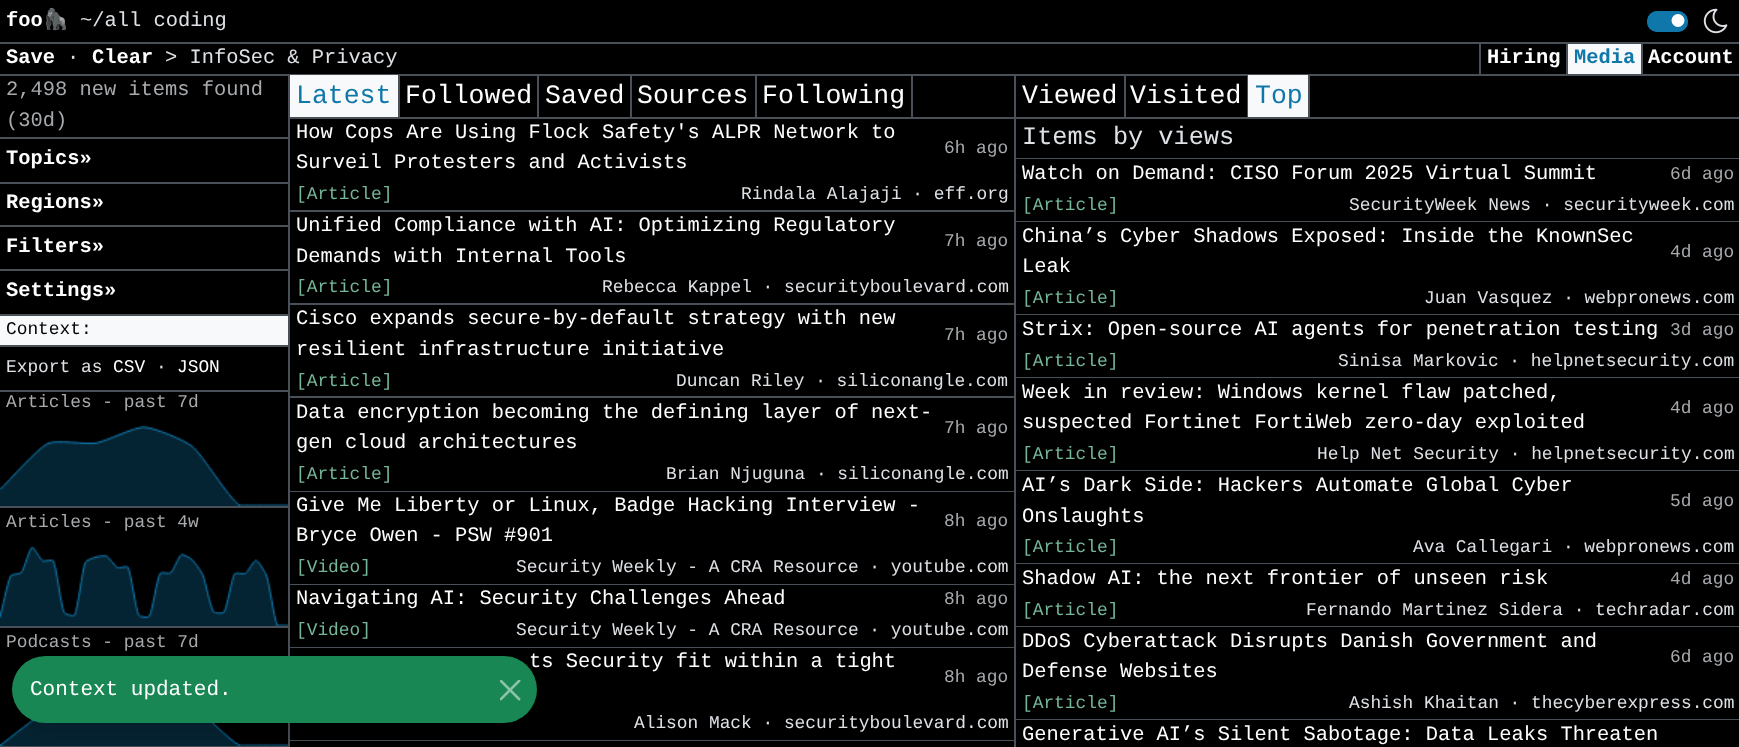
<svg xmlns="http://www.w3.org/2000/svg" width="1739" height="747">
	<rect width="100%" height="100%" fill="#000000" />
	<rect x="0" y="42" width="1739" height="2" fill="#495057" />
	<text x="6" y="26" font-family="Liberation Mono" font-size="20.4" font-weight="700" fill="#FFFFFF">foo</text>
	<text x="43" y="26" font-family="Noto Color Emoji" font-size="20.4" font-weight="700" fill="#FFFFFF">🦍</text>
	<text x="80" y="26" font-family="Liberation Mono" font-size="20.4" fill="#DEE2E6">~/all coding</text>
	<rect x="1647" y="11" width="41" height="21" rx="10.5" fill="#1077AA" />
	<circle cx="1678" cy="20.5" r="6.5" fill="#FFFFFF" />
	<rect x="1648" y="12" width="39" height="19" rx="9.5" fill="none" stroke="#1077AA" stroke-width="2" />
	<image x="1703" y="8" width="25" height="26" href="assets/img1.png" />
	<rect x="0" y="74" width="1739" height="2" fill="#495057" />
	<text x="6" y="63" font-family="Liberation Mono" font-size="20.4" font-weight="700" fill="#FFFFFF">Save</text>
	<text x="67" y="63" font-family="Liberation Mono" font-size="20.4" fill="#DEE2E6">·</text>
	<text x="92" y="63" font-family="Liberation Mono" font-size="20.4" font-weight="700" fill="#FFFFFF">Clear</text>
	<text x="165" y="63" font-family="Liberation Mono" font-size="20.4" fill="#DEE2E6">&gt; InfoSec &amp; Privacy</text>
	<rect x="1479" y="44" width="2" height="30" fill="#495057" />
	<text x="1487" y="63" font-family="Liberation Mono" font-size="20.4" font-weight="700" fill="#FFFFFF">Hiring</text>
	<rect x="1568" y="44" width="73" height="30" fill="#F8F9FA" />
	<rect x="1566" y="44" width="2" height="30" fill="#495057" />
	<text x="1574" y="63" font-family="Liberation Mono" font-size="20.4" font-weight="700" fill="#1077AA">Media</text>
	<rect x="1641" y="44" width="2" height="30" fill="#495057" />
	<text x="1648" y="63" font-family="Liberation Mono" font-size="20.4" font-weight="700" fill="#FFFFFF">Account</text>
	<rect x="288" y="75" width="2" height="672" fill="#495057" />
	<rect x="0" y="137" width="288" height="2" fill="#495057" />
	<g font-family="Liberation Mono" font-size="20.4" fill="#A7AAAD">
		<text x="6" y="95">2,498 new items found</text>
		<text x="6" y="126">(30d)</text>
	</g>
	<rect x="0" y="182" width="288" height="2" fill="#495057" />
	<text x="6" y="164" font-family="Liberation Mono" font-size="20.4" font-weight="700" fill="#FFFFFF">Topics»</text>
	<rect x="0" y="225" width="288" height="2" fill="#495057" />
	<text x="6" y="208" font-family="Liberation Mono" font-size="20.4" font-weight="700" fill="#FFFFFF">Regions»</text>
	<rect x="0" y="269" width="288" height="2" fill="#495057" />
	<text x="6" y="252" font-family="Liberation Mono" font-size="20.4" font-weight="700" fill="#FFFFFF">Filters»</text>
	<rect x="0" y="314" width="288" height="2" fill="#495057" />
	<text x="6" y="296" font-family="Liberation Mono" font-size="20.4" font-weight="700" fill="#FFFFFF">Settings»</text>
	<rect x="0" y="316" width="288" height="29" fill="#F8F9FA" />
	<rect x="0" y="345" width="288" height="2" fill="#495057" />
	<text x="6" y="334" font-family="Liberation Mono" font-size="17.85" fill="#000000">Context:</text>
	<rect x="0" y="390" width="288" height="2" fill="#495057" />
	<text x="6" y="372" font-family="Liberation Mono" font-size="17.85" fill="#DEE2E6">Export as</text>
	<text x="113" y="372" font-family="Liberation Mono" font-size="17.85" fill="#FFFFFF">CSV</text>
	<text x="156" y="372" font-family="Liberation Mono" font-size="17.85" fill="#DEE2E6">·</text>
	<text x="177" y="372" font-family="Liberation Mono" font-size="17.85" fill="#FFFFFF">JSON</text>
	<text x="6" y="407" font-family="Liberation Mono" font-size="17.85" fill="#A7AAAD">Articles - past 7d</text>
	<rect x="0" y="506" width="288" height="2" fill="#495057" />
	<image x="0" y="425" width="288" height="81" href="assets/img2.png" />
	<text x="6" y="527" font-family="Liberation Mono" font-size="17.85" fill="#A7AAAD">Articles - past 4w</text>
	<rect x="0" y="626" width="288" height="2" fill="#495057" />
	<image x="0" y="545" width="288" height="81" href="assets/img3.png" />
	<text x="6" y="647" font-family="Liberation Mono" font-size="17.85" fill="#A7AAAD">Podcasts - past 7d</text>
	<rect x="0" y="746" width="288" height="1" fill="#495057" />
	<image x="0" y="719" width="288" height="27" href="assets/img4.png" />
	<rect x="1014" y="75" width="2" height="672" fill="#495057" />
	<rect x="290" y="117" width="724" height="2" fill="#495057" />
	<rect x="290" y="75" width="108" height="42" fill="#F8F9FA" />
	<rect x="398" y="75" width="2" height="42" fill="#495057" />
	<text x="296" y="103" font-family="Liberation Mono" font-size="26.5" fill="#1077AA">Latest</text>
	<rect x="537" y="75" width="2" height="42" fill="#495057" />
	<text x="405" y="103" font-family="Liberation Mono" font-size="26.5" fill="#FFFFFF">Followed</text>
	<rect x="630" y="75" width="2" height="42" fill="#495057" />
	<text x="545" y="103" font-family="Liberation Mono" font-size="26.5" fill="#FFFFFF">Saved</text>
	<rect x="755" y="75" width="2" height="42" fill="#495057" />
	<text x="637" y="103" font-family="Liberation Mono" font-size="26.5" fill="#FFFFFF">Sources</text>
	<rect x="911" y="75" width="2" height="42" fill="#495057" />
	<text x="762" y="103" font-family="Liberation Mono" font-size="26.5" fill="#FFFFFF">Following</text>
	<rect x="290" y="210" width="724" height="2" fill="#495057" />
	<g font-family="Liberation Mono" font-size="20.4" fill="#FFFFFF">
		<text x="296" y="138">How Cops Are Using Flock Safety's ALPR Network to</text>
		<text x="296" y="168">Surveil Protesters and Activists</text>
	</g>
	<text x="944" y="153" font-family="Liberation Mono" font-size="17.85" fill="#A7AAAD">6h ago</text>
	<text x="296" y="199" font-family="Liberation Mono" font-size="17.85" fill="#75B798">[Article]</text>
	<text x="741" y="199" font-family="Liberation Mono" font-size="17.85" fill="#DEE2E6">Rindala Alajaji · eff.org</text>
	<rect x="290" y="303" width="724" height="2" fill="#495057" />
	<g font-family="Liberation Mono" font-size="20.4" fill="#FFFFFF">
		<text x="296" y="231">Unified Compliance with AI: Optimizing Regulatory</text>
		<text x="296" y="262">Demands with Internal Tools</text>
	</g>
	<text x="944" y="246" font-family="Liberation Mono" font-size="17.85" fill="#A7AAAD">7h ago</text>
	<text x="296" y="292" font-family="Liberation Mono" font-size="17.85" fill="#75B798">[Article]</text>
	<text x="602" y="292" font-family="Liberation Mono" font-size="17.85" fill="#DEE2E6">Rebecca Kappel · securityboulevard.com</text>
	<rect x="290" y="396" width="724" height="2" fill="#495057" />
	<g font-family="Liberation Mono" font-size="20.4" fill="#FFFFFF">
		<text x="296" y="324">Cisco expands secure-by-default strategy with new</text>
		<text x="296" y="355">resilient infrastructure initiative</text>
	</g>
	<text x="944" y="340" font-family="Liberation Mono" font-size="17.85" fill="#A7AAAD">7h ago</text>
	<text x="296" y="386" font-family="Liberation Mono" font-size="17.85" fill="#75B798">[Article]</text>
	<text x="676" y="386" font-family="Liberation Mono" font-size="17.85" fill="#DEE2E6">Duncan Riley · siliconangle.com</text>
	<rect x="290" y="491" width="724" height="1" fill="#495057" />
	<g font-family="Liberation Mono" font-size="20.4" fill="#FFFFFF">
		<text x="296" y="418">Data encryption becoming the defining layer of next-</text>
		<text x="296" y="448">gen cloud architectures</text>
	</g>
	<text x="944" y="433" font-family="Liberation Mono" font-size="17.85" fill="#A7AAAD">7h ago</text>
	<text x="296" y="479" font-family="Liberation Mono" font-size="17.85" fill="#75B798">[Article]</text>
	<text x="666" y="479" font-family="Liberation Mono" font-size="17.85" fill="#DEE2E6">Brian Njuguna · siliconangle.com</text>
	<rect x="290" y="584" width="724" height="1" fill="#495057" />
	<g font-family="Liberation Mono" font-size="20.4" fill="#FFFFFF">
		<text x="296" y="511">Give Me Liberty or Linux, Badge Hacking Interview -</text>
		<text x="296" y="541">Bryce Owen - PSW #901</text>
	</g>
	<text x="944" y="526" font-family="Liberation Mono" font-size="17.85" fill="#A7AAAD">8h ago</text>
	<text x="296" y="572" font-family="Liberation Mono" font-size="17.85" fill="#75B798">[Video]</text>
	<text x="516" y="572" font-family="Liberation Mono" font-size="17.85" fill="#DEE2E6">Security Weekly - A CRA Resource · youtube.com</text>
	<rect x="290" y="647" width="724" height="1" fill="#495057" />
	<text x="296" y="604" font-family="Liberation Mono" font-size="20.4" fill="#FFFFFF">Navigating AI: Security Challenges Ahead</text>
	<text x="944" y="604" font-family="Liberation Mono" font-size="17.85" fill="#A7AAAD">8h ago</text>
	<text x="296" y="635" font-family="Liberation Mono" font-size="17.85" fill="#75B798">[Video]</text>
	<text x="516" y="635" font-family="Liberation Mono" font-size="17.85" fill="#DEE2E6">Security Weekly - A CRA Resource · youtube.com</text>
	<rect x="290" y="740" width="724" height="1" fill="#495057" />
	<text x="529" y="667" font-family="Liberation Mono" font-size="20.4" fill="#FFFFFF">ts Security fit within a tight</text>
	<text x="944" y="682" font-family="Liberation Mono" font-size="17.85" fill="#A7AAAD">8h ago</text>
	<text x="634" y="728" font-family="Liberation Mono" font-size="17.85" fill="#DEE2E6">Alison Mack · securityboulevard.com</text>
	<rect x="1016" y="117" width="723" height="2" fill="#495057" />
	<rect x="1124" y="75" width="2" height="42" fill="#495057" />
	<text x="1022" y="103" font-family="Liberation Mono" font-size="26.5" fill="#FFFFFF">Viewed</text>
	<rect x="1247" y="75" width="1" height="42" fill="#495057" />
	<text x="1130" y="103" font-family="Liberation Mono" font-size="26.5" fill="#FFFFFF">Visited</text>
	<rect x="1248" y="75" width="60" height="42" fill="#F8F9FA" />
	<rect x="1308" y="75" width="2" height="42" fill="#495057" />
	<text x="1255" y="103" font-family="Liberation Mono" font-size="26.5" fill="#1077AA">Top</text>
	<rect x="1016" y="158" width="723" height="1" fill="#495057" />
	<text x="1022" y="144" font-family="Liberation Mono" font-size="25.25" fill="#DEE2E6">Items by views</text>
	<rect x="1016" y="221" width="723" height="1" fill="#495057" />
	<text x="1022" y="179" font-family="Liberation Mono" font-size="20.4" fill="#FFFFFF">Watch on Demand: CISO Forum 2025 Virtual Summit</text>
	<text x="1670" y="179" font-family="Liberation Mono" font-size="17.85" fill="#A7AAAD">6d ago</text>
	<text x="1022" y="210" font-family="Liberation Mono" font-size="17.85" fill="#75B798">[Article]</text>
	<text x="1349" y="210" font-family="Liberation Mono" font-size="17.85" fill="#DEE2E6">SecurityWeek News · securityweek.com</text>
	<rect x="1016" y="314" width="723" height="1" fill="#495057" />
	<g font-family="Liberation Mono" font-size="20.4" fill="#FFFFFF">
		<text x="1022" y="242">China’s Cyber Shadows Exposed: Inside the KnownSec</text>
		<text x="1022" y="272">Leak</text>
	</g>
	<text x="1670" y="257" font-family="Liberation Mono" font-size="17.85" fill="#A7AAAD">4d ago</text>
	<text x="1022" y="303" font-family="Liberation Mono" font-size="17.85" fill="#75B798">[Article]</text>
	<text x="1424" y="303" font-family="Liberation Mono" font-size="17.85" fill="#DEE2E6">Juan Vasquez · webpronews.com</text>
	<rect x="1016" y="377" width="723" height="1" fill="#495057" />
	<text x="1022" y="335" font-family="Liberation Mono" font-size="20.4" fill="#FFFFFF">Strix: Open-source AI agents for penetration testing</text>
	<text x="1670" y="335" font-family="Liberation Mono" font-size="17.85" fill="#A7AAAD">3d ago</text>
	<text x="1022" y="366" font-family="Liberation Mono" font-size="17.85" fill="#75B798">[Article]</text>
	<text x="1338" y="366" font-family="Liberation Mono" font-size="17.85" fill="#DEE2E6">Sinisa Markovic · helpnetsecurity.com</text>
	<rect x="1016" y="470" width="723" height="1" fill="#495057" />
	<g font-family="Liberation Mono" font-size="20.4" fill="#FFFFFF">
		<text x="1022" y="398">Week in review: Windows kernel flaw patched,</text>
		<text x="1022" y="428">suspected Fortinet FortiWeb zero-day exploited</text>
	</g>
	<text x="1670" y="413" font-family="Liberation Mono" font-size="17.85" fill="#A7AAAD">4d ago</text>
	<text x="1022" y="459" font-family="Liberation Mono" font-size="17.85" fill="#75B798">[Article]</text>
	<text x="1317" y="459" font-family="Liberation Mono" font-size="17.85" fill="#DEE2E6">Help Net Security · helpnetsecurity.com</text>
	<rect x="1016" y="563" width="723" height="1" fill="#495057" />
	<g font-family="Liberation Mono" font-size="20.4" fill="#FFFFFF">
		<text x="1022" y="491">AI’s Dark Side: Hackers Automate Global Cyber</text>
		<text x="1022" y="522">Onslaughts</text>
	</g>
	<text x="1670" y="506" font-family="Liberation Mono" font-size="17.85" fill="#A7AAAD">5d ago</text>
	<text x="1022" y="552" font-family="Liberation Mono" font-size="17.85" fill="#75B798">[Article]</text>
	<text x="1413" y="552" font-family="Liberation Mono" font-size="17.85" fill="#DEE2E6">Ava Callegari · webpronews.com</text>
	<rect x="1016" y="626" width="723" height="1" fill="#495057" />
	<text x="1022" y="584" font-family="Liberation Mono" font-size="20.4" fill="#FFFFFF">Shadow AI: the next frontier of unseen risk</text>
	<text x="1670" y="584" font-family="Liberation Mono" font-size="17.85" fill="#A7AAAD">4d ago</text>
	<text x="1022" y="615" font-family="Liberation Mono" font-size="17.85" fill="#75B798">[Article]</text>
	<text x="1306" y="615" font-family="Liberation Mono" font-size="17.85" fill="#DEE2E6">Fernando Martinez Sidera · techradar.com</text>
	<rect x="1016" y="719" width="723" height="1" fill="#495057" />
	<g font-family="Liberation Mono" font-size="20.4" fill="#FFFFFF">
		<text x="1022" y="647">DDoS Cyberattack Disrupts Danish Government and</text>
		<text x="1022" y="677">Defense Websites</text>
	</g>
	<text x="1670" y="662" font-family="Liberation Mono" font-size="17.85" fill="#A7AAAD">6d ago</text>
	<text x="1022" y="708" font-family="Liberation Mono" font-size="17.85" fill="#75B798">[Article]</text>
	<text x="1349" y="708" font-family="Liberation Mono" font-size="17.85" fill="#DEE2E6">Ashish Khaitan · thecyberexpress.com</text>
	<text x="1022" y="740" font-family="Liberation Mono" font-size="20.4" fill="#FFFFFF">Generative AI’s Silent Sabotage: Data Leaks Threaten</text>
	<rect x="12" y="668" width="525" height="67" rx="33.5" fill="#000000" fill-opacity="0.15" filter="blur(12px)" />
	<rect x="12" y="656" width="525" height="67" rx="33.5" fill="#198754" />
	<text x="30" y="695" font-family="Liberation Mono" font-size="21" fill="#FFFFFF">Context updated.</text>
	<image x="500" y="680" width="21" height="21" href="assets/img5.png" />
</svg>
